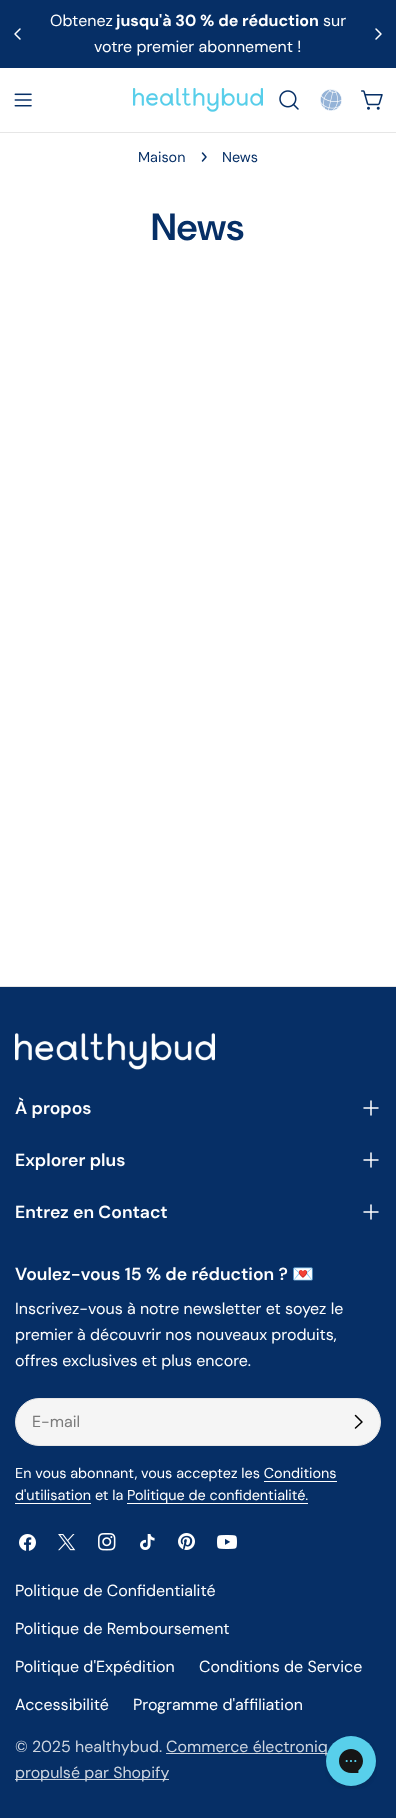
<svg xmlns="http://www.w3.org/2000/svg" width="396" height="1818">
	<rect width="100%" height="100%" fill="#FFFFFF" />
	<rect x="0" y="0" width="396" height="68" fill="#062F66" />
	<text x="50" y="26" font-family="DM Sans" font-size="16" fill="#FFFFFF">Obtenez</text>
	<text x="116" y="26" font-family="DM Sans" font-size="16" font-weight="700" fill="#FFFFFF">jusqu'à 30 % de réduction</text>
	<g font-family="DM Sans" font-size="16" fill="#FFFFFF">
		<text x="323" y="26">sur</text>
		<text x="94" y="52">votre premier abonnement !</text>
	</g>
	<path d="M20 39L15 34L20 29" fill="none" stroke="#FFFFFF" stroke-width="1.5" stroke-linecap="round" stroke-linejoin="round" />
	<path d="M376 29L381 34L376 39" fill="none" stroke="#FFFFFF" stroke-width="1.5" stroke-linecap="round" stroke-linejoin="round" />
	<rect x="0" y="132" width="396" height="1" fill="#E6E6E6" />
	<image x="14" y="93" width="18" height="14" href="assets/img1.png" />
	<image x="133" y="88" width="130" height="24" href="assets/img2.png" />
	<image x="279" y="90" width="20" height="20" href="assets/img3.png" />
	<image x="320" y="89" width="22" height="22" href="assets/img4.png" />
	<image x="361" y="90" width="22" height="20" href="assets/img5.png" />
	<text x="138" y="162" font-family="DM Sans" font-size="14.4" fill="#062F66">Maison</text>
	<path d="M202.5 153L206 157L202.5 161" fill="none" stroke="#062F66" stroke-width="1.5" stroke-linecap="round" stroke-linejoin="round" />
	<text x="222" y="162" font-family="DM Sans" font-size="14.4" fill="#062F66">News</text>
	<text x="151" y="240" font-family="DM Sans" font-size="38" font-weight="600" fill="#062F66">News</text>
	<rect x="0" y="987" width="396" height="831" fill="#062F66" />
	<rect x="0" y="986" width="396" height="1" fill="#E6E6E6" />
	<image x="15" y="1033" width="200" height="37" href="assets/img6.png" />
	<text x="15" y="1114" font-family="'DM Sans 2'" font-size="17.6" font-weight="600" fill="#FFFFFF">À propos</text>
	<path d="M364 1108H378M371 1101V1115" fill="none" stroke="#FFFFFF" stroke-width="1.5" stroke-linecap="round" stroke-linejoin="round" />
	<text x="15" y="1166" font-family="'DM Sans 2'" font-size="17.6" font-weight="600" fill="#FFFFFF">Explorer plus</text>
	<path d="M364 1160H378M371 1153V1167" fill="none" stroke="#FFFFFF" stroke-width="1.5" stroke-linecap="round" stroke-linejoin="round" />
	<text x="15" y="1218" font-family="'DM Sans 2'" font-size="17.6" font-weight="600" fill="#FFFFFF">Entrez en Contact</text>
	<path d="M364 1212H378M371 1205V1219" fill="none" stroke="#FFFFFF" stroke-width="1.5" stroke-linecap="round" stroke-linejoin="round" />
	<text x="15" y="1280" font-family="'DM Sans 2'" font-size="17.6" font-weight="600" fill="#FFFFFF">Voulez-vous 15 % de réduction ?</text>
	<text x="292" y="1280" font-family="Noto Color Emoji" font-size="17.6" font-weight="700" fill="#FFFFFF">💌</text>
	<g font-family="DM Sans" font-size="16" fill="#FFFFFF">
		<text x="15" y="1314">Inscrivez-vous à notre newsletter et soyez le</text>
		<text x="15" y="1340">premier à découvrir nos nouveaux produits,</text>
		<text x="15" y="1366">offres exclusives et plus encore.</text>
	</g>
	<rect x="15.5" y="1398.5" width="365" height="47" rx="23.5" fill="#F5F5F5" stroke="#E6E6E6" />
	<text x="32" y="1427" font-family="DM Sans" font-size="16" fill="#7B7B7B">E-mail</text>
	<path d="M355.5 1415.5L362 1422L355.5 1428" fill="none" stroke="#000000" stroke-width="1.5" stroke-linecap="round" stroke-linejoin="round" />
	<g font-family="DM Sans" font-size="14.4" fill="#FFFFFF">
		<text x="15" y="1478">En vous abonnant, vous acceptez les Conditions</text>
		<text x="15" y="1500">d'utilisation et la</text>
	</g>
	<rect x="264" y="1481" width="73" height="1" fill="#FFFFFF" />
	<rect x="15" y="1503" width="76" height="1" fill="#FFFFFF" />
	<rect x="127" y="1503" width="181" height="1" fill="#FFFFFF" />
	<text x="127" y="1500" font-family="DM Sans" font-size="14.4" fill="#FFFFFF">Politique de confidentialité.</text>
	<image x="19" y="1534" width="17" height="17" href="assets/img7.png" />
	<image x="58" y="1534" width="18" height="17" href="assets/img8.png" />
	<image x="98" y="1533" width="18" height="18" href="assets/img9.png" />
	<image x="140" y="1534" width="15" height="16" href="assets/img10.png" />
	<image x="178" y="1533" width="17" height="17" href="assets/img11.png" />
	<image x="217" y="1535" width="20" height="14" href="assets/img12.png" />
	<g font-family="DM Sans" font-size="16" fill="#FFFFFF">
		<text x="15" y="1596">Politique de Confidentialité</text>
		<text x="15" y="1634">Politique de Remboursement</text>
		<text x="15" y="1672">Politique d'Expédition</text>
		<text x="199" y="1672">Conditions de Service</text>
		<text x="15" y="1710">Accessibilité</text>
		<text x="133" y="1710">Programme d'affiliation</text>
	</g>
	<text x="15" y="1752" font-family="DM Sans" font-size="16" fill="#CDD5E0">© 2025 healthybud.</text>
	<rect x="166" y="1753" width="162" height="1" fill="#CDD5E0" />
	<text x="166" y="1752" font-family="DM Sans" font-size="16" fill="#CDD5E0">Commerce électroniq</text>
	<rect x="15" y="1779" width="154" height="1" fill="#CDD5E0" />
	<text x="15" y="1778" font-family="DM Sans" font-size="16" fill="#CDD5E0">propulsé par Shopify</text>
	<image x="325" y="1736" width="52" height="53" href="assets/img13.png" />
</svg>
